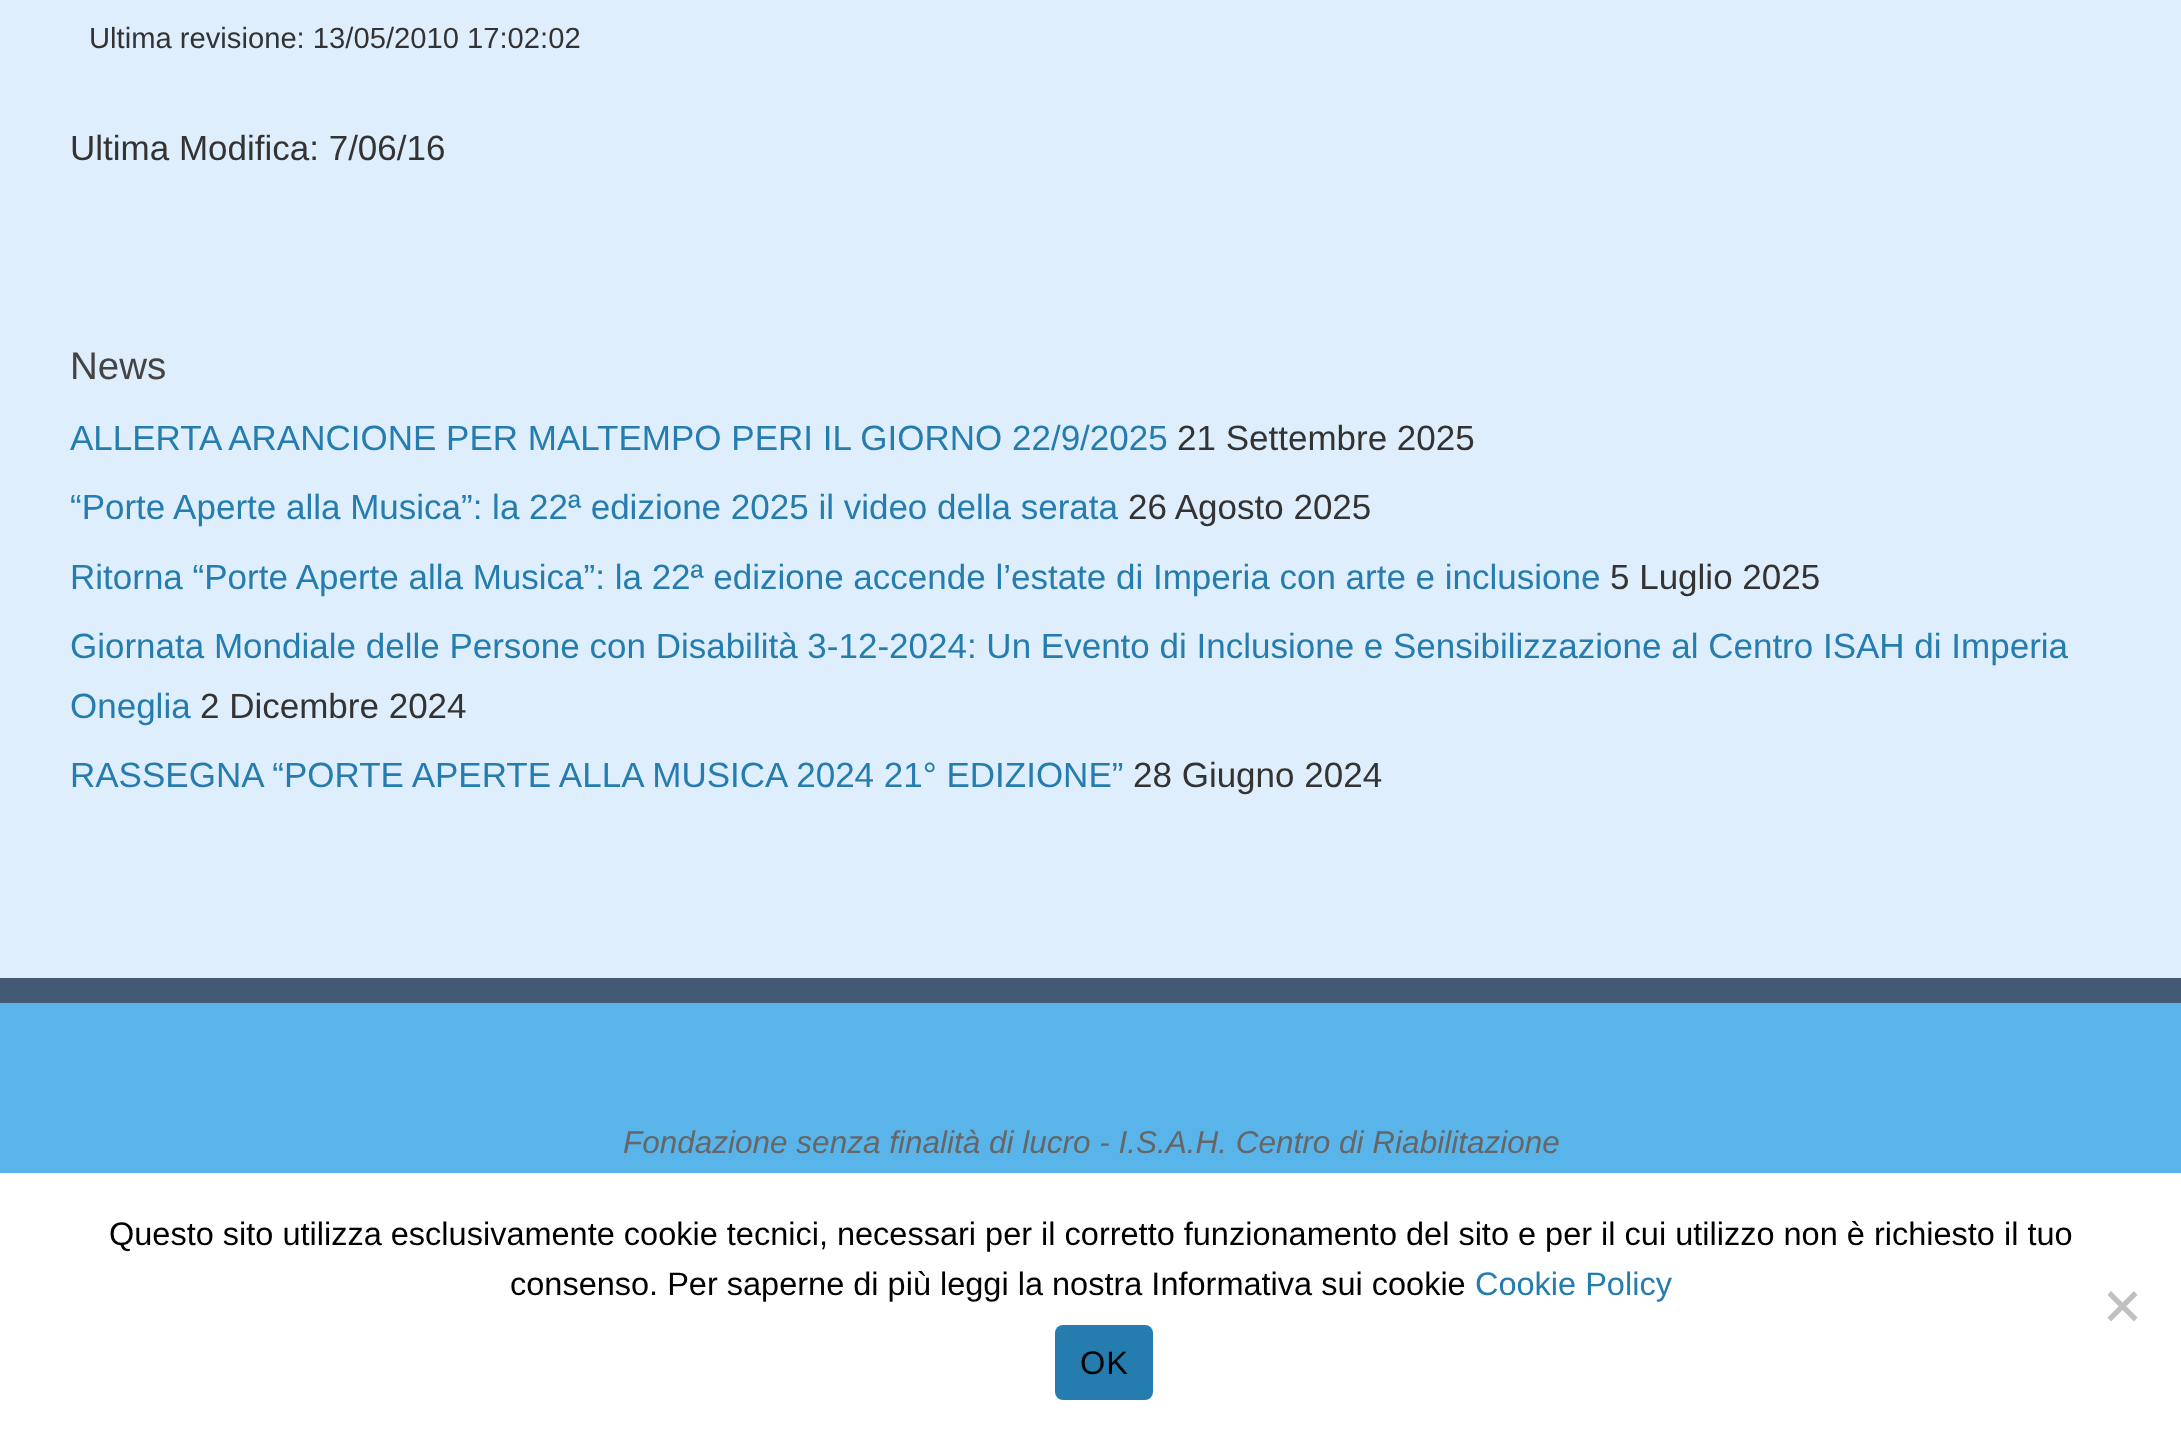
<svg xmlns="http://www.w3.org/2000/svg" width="2181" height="1437">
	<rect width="100%" height="100%" fill="#435974" />
	<rect x="0" y="0" width="2181" height="978" fill="#DEEEFC" />
	<text x="89" y="48" font-family="Liberation Sans" font-size="29.2" fill="#333333">Ultima revisione: 13/05/2010 17:02:02</text>
	<text x="70" y="160" font-family="Liberation Sans" font-size="35" fill="#333333">Ultima Modifica: 7/06/16</text>
	<text x="70" y="379" font-family="Liberation Sans" font-size="38.5" fill="#444444">News</text>
	<text x="70" y="450" font-family="Liberation Sans" font-size="35" fill="#257CAF">ALLERTA ARANCIONE PER MALTEMPO PERI IL GIORNO 22/9/2025</text>
	<text x="1177" y="450" font-family="Liberation Sans" font-size="35" fill="#333333">21 Settembre 2025</text>
	<text x="70" y="519" font-family="Liberation Sans" font-size="35" fill="#257CAF">“Porte Aperte alla Musica”: la 22ª edizione 2025 il video della serata</text>
	<text x="1128" y="519" font-family="Liberation Sans" font-size="35" fill="#333333">26 Agosto 2025</text>
	<text x="70" y="589" font-family="Liberation Sans" font-size="35" fill="#257CAF">Ritorna “Porte Aperte alla Musica”: la 22ª edizione accende l’estate di Imperia con arte e inclusione</text>
	<text x="1610" y="589" font-family="Liberation Sans" font-size="35" fill="#333333">5 Luglio 2025</text>
	<g font-family="Liberation Sans" font-size="35" fill="#257CAF">
		<text x="70" y="658">Giornata Mondiale delle Persone con Disabilità 3-12-2024: Un Evento di Inclusione e Sensibilizzazione al Centro ISAH di Imperia</text>
		<text x="70" y="718">Oneglia</text>
	</g>
	<text x="200" y="718" font-family="Liberation Sans" font-size="35" fill="#333333">2 Dicembre 2024</text>
	<text x="70" y="787" font-family="Liberation Sans" font-size="35" fill="#257CAF">RASSEGNA “PORTE APERTE ALLA MUSICA 2024 21° EDIZIONE”</text>
	<text x="1133" y="787" font-family="Liberation Sans" font-size="35" fill="#333333">28 Giugno 2024</text>
	<rect x="0" y="1003" width="2181" height="170" fill="#59B4EA" />
	<text x="623" y="1153" font-family="Liberation Sans" font-size="31.5" font-style="italic" fill="#666666">Fondazione senza finalità di lucro - I.S.A.H. Centro di Riabilitazione</text>
	<rect x="0" y="1173" width="2181" height="264" fill="#FFFFFF" />
	<g font-family="Liberation Sans" font-size="32.5" fill="#000000">
		<text x="109" y="1245">Questo sito utilizza esclusivamente cookie tecnici, necessari per il corretto funzionamento del sito e per il cui utilizzo non è richiesto il tuo</text>
		<text x="510" y="1295">consenso. Per saperne di più leggi la nostra Informativa sui cookie</text>
	</g>
	<text x="1475" y="1295" font-family="Liberation Sans" font-size="32.5" fill="#257CAF">Cookie Policy</text>
	<path d="M2134 1291L2137.5 1295L2111 1321.5L2107.5 1317.5Z" fill="#C0C0C0" />
	<path d="M2107.5 1295L2111 1291L2137.5 1317.5L2134 1321.5Z" fill="#C0C0C0" />
	<rect x="1055" y="1325" width="98" height="75" rx="8" fill="#257CAF" />
	<text x="1080" y="1374" font-family="Liberation Sans" font-size="32.5" letter-spacing="1" fill="#000000">OK</text>
</svg>
